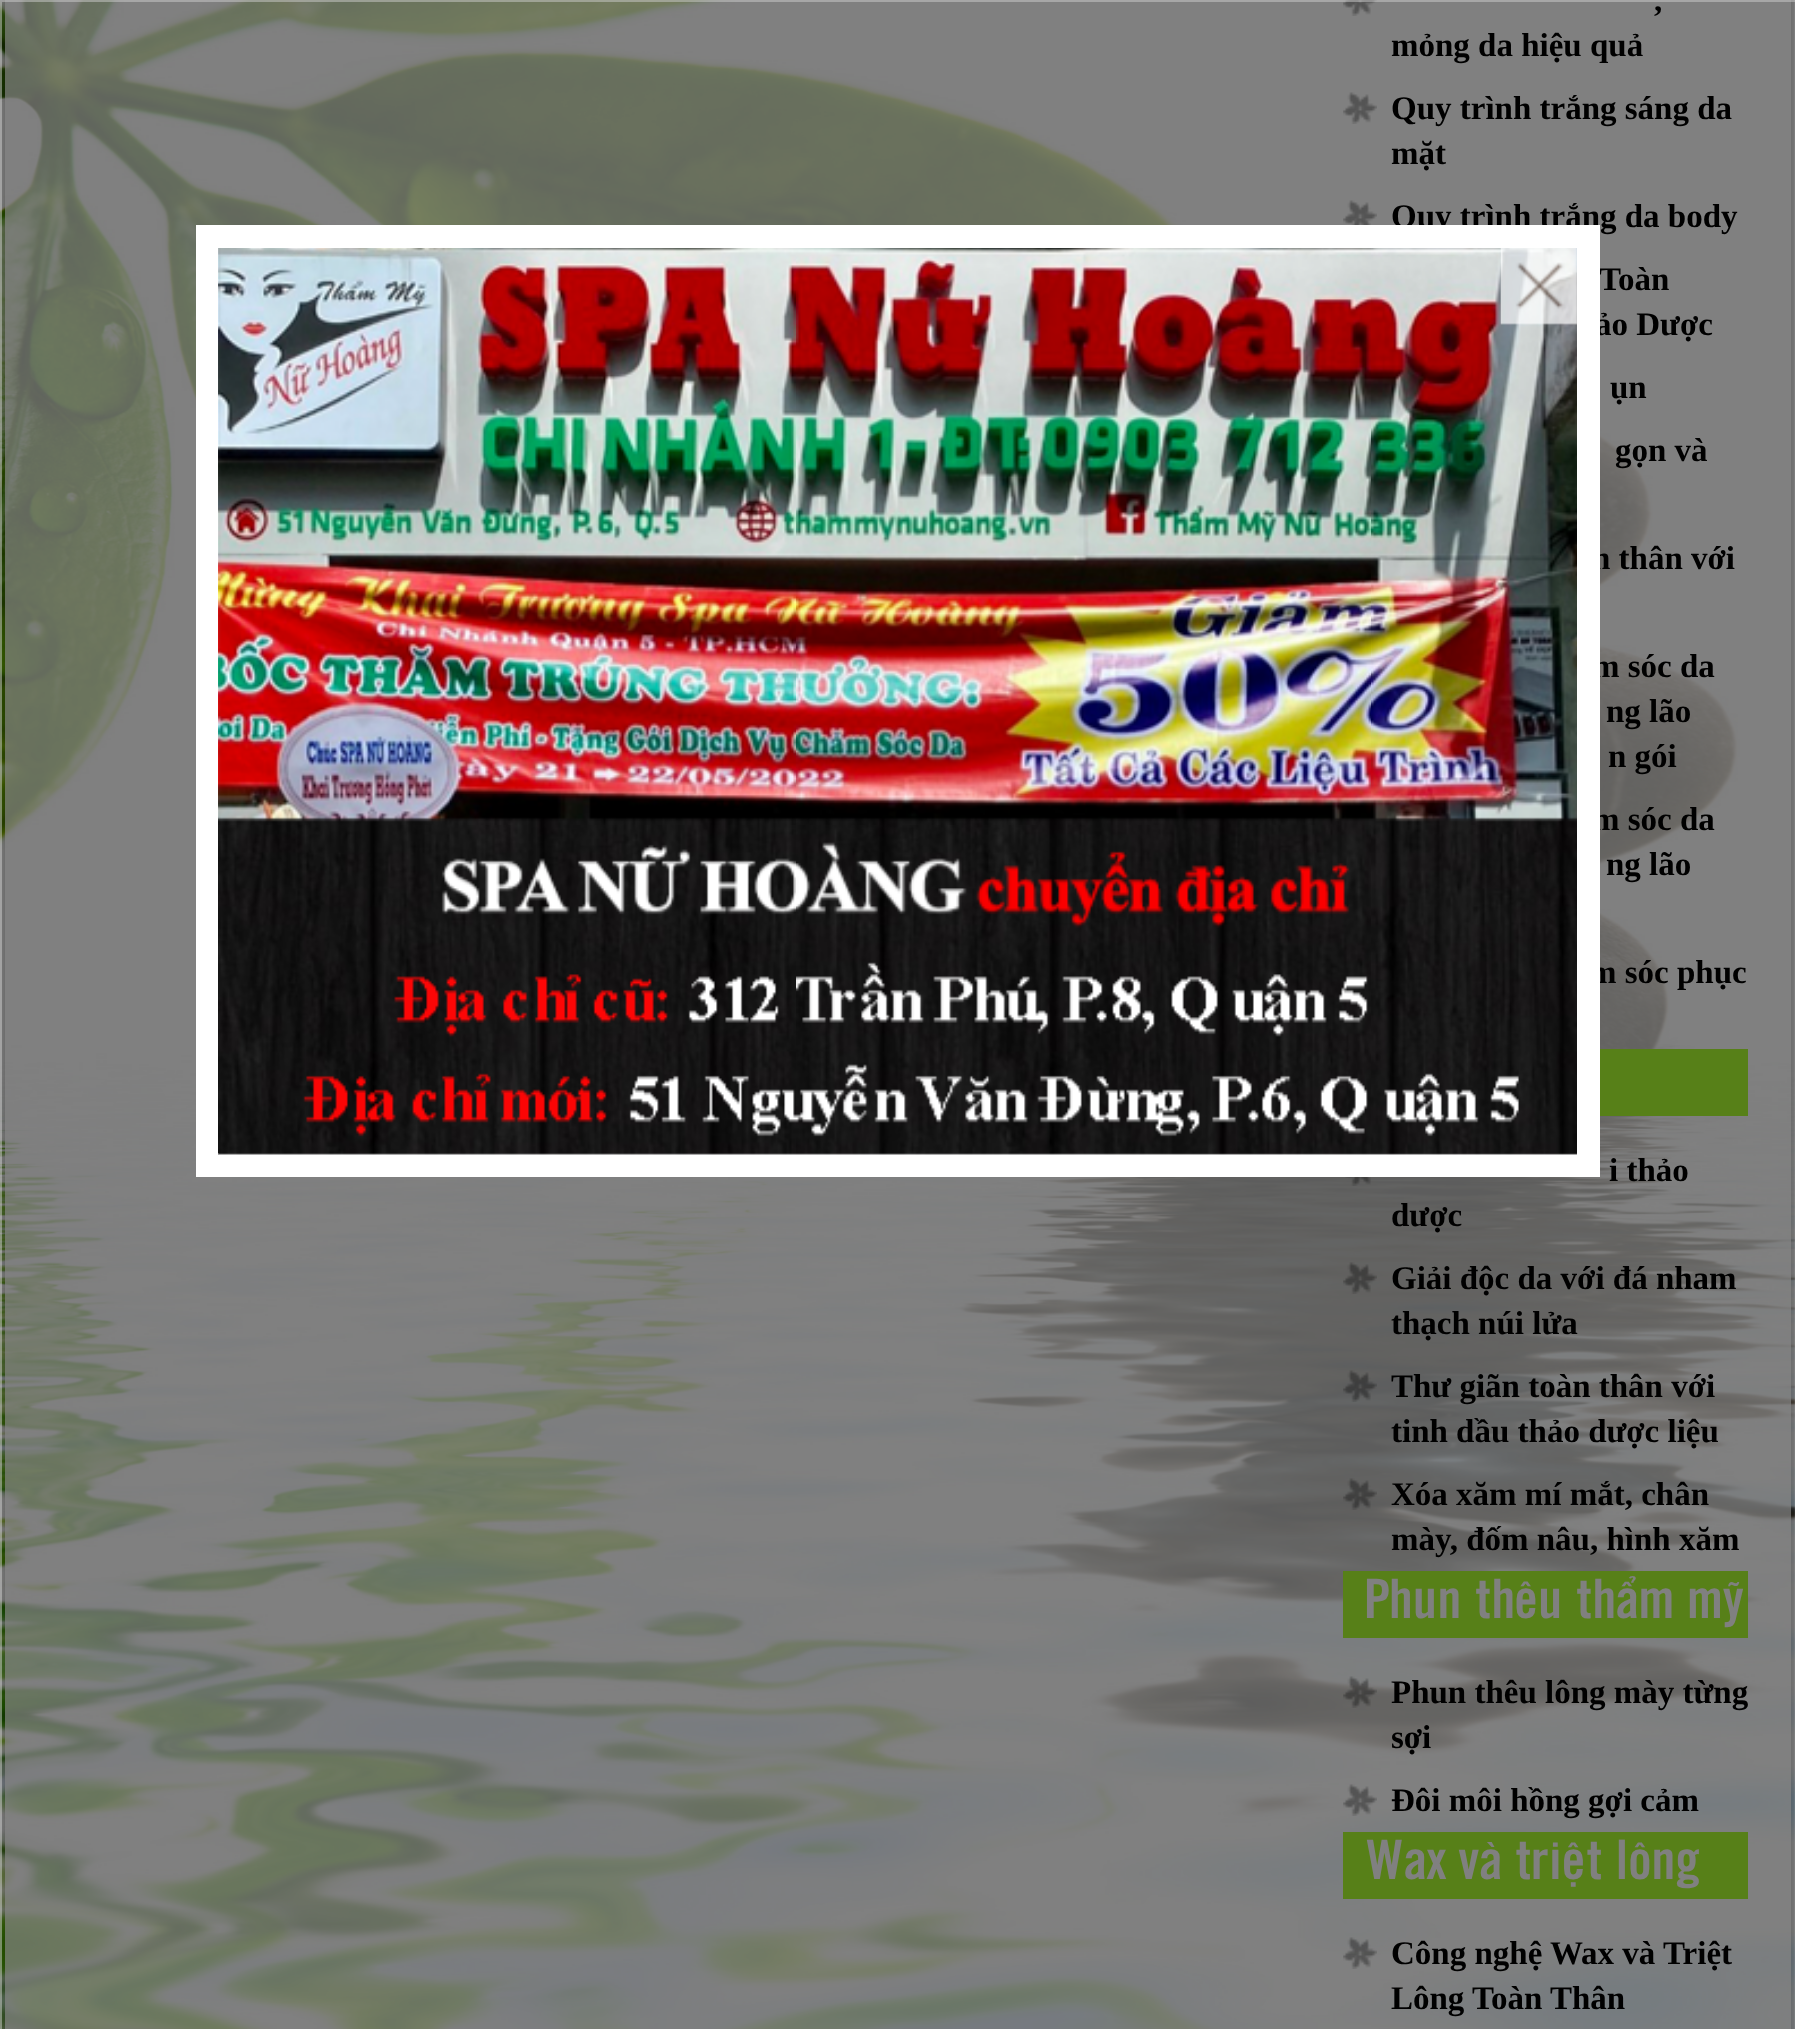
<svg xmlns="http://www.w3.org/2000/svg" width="1795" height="2029">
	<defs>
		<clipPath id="clip1"><path d="M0 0H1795V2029H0ZM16-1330H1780C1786-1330 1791-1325 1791-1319V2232H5V-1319C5-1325 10-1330 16-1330Z" clip-rule="evenodd" /></clipPath>
	</defs>
	<rect width="100%" height="100%" fill="#FFFFFF" />
	<image x="0" y="0" width="1795" height="2029" href="assets/img1.png" />
	<g clip-path="url(#clip1)">
		<rect x="5" y="-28" width="1786" height="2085" rx="11" fill="#000000" fill-opacity="0.3" filter="blur(5.5px)" />
	</g>
	<image x="1343" y="0" width="34" height="16" href="assets/img4.png" />
	<image x="1343" y="92" width="34" height="32" href="assets/img5.png" />
	<image x="1343" y="200" width="34" height="25" href="assets/img6.png" />
	<rect x="1600" y="1049" width="148" height="67" fill="#578018" />
	<image x="1345" y="1177" width="26" height="9" href="assets/img7.png" />
	<image x="1343" y="1262" width="34" height="32" href="assets/img8.png" />
	<image x="1343" y="1370" width="34" height="32" href="assets/img9.png" />
	<image x="1343" y="1478" width="34" height="32" href="assets/img10.png" />
	<rect x="1343" y="1571" width="405" height="67" fill="#578018" />
	<image x="1343" y="1676" width="34" height="32" href="assets/img11.png" />
	<image x="1343" y="1784" width="34" height="32" href="assets/img12.png" />
	<rect x="1343" y="1832" width="405" height="67" fill="#578018" />
	<image x="1343" y="1937" width="34" height="32" href="assets/img13.png" />
	<rect x="1" y="1" width="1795" height="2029" fill="none" stroke="#CECECE" stroke-opacity="0.5" stroke-width="2" />
	<g font-family="Liberation Serif" font-size="33" font-weight="700" fill="#000000">
		<text x="1391" y="227">Quy trình trắng da body</text>
		<text x="1599" y="290">Toàn</text>
		<text x="1595" y="335">ảo Dược</text>
		<text x="1592" y="569">n thân với</text>
		<text x="1592" y="677">m sóc da</text>
		<text x="1592" y="830">m sóc da</text>
		<text x="1589" y="983">m sóc phục</text>
	</g>
	<rect x="207.5" y="236.5" width="1381" height="929" fill="none" stroke="#FFFFFF" stroke-width="23" />
	<image x="218" y="248" width="1359" height="907" href="assets/img2.png" />
	<image x="1500" y="248" width="77" height="77" href="assets/img3.png" />
	<g font-family="Liberation Serif" font-size="33" font-weight="700" fill="#000000">
		<text x="1654" y="11">,</text>
		<text x="1391" y="56">mỏng da hiệu quả</text>
		<text x="1391" y="119">Quy trình trắng sáng da</text>
		<text x="1391" y="164">mặt</text>
		<text x="1610" y="398">ụn</text>
		<text x="1615" y="461">gọn và</text>
		<text x="1606" y="722">ng lão</text>
		<text x="1608" y="767">n gói</text>
		<text x="1606" y="875">ng lão</text>
		<text x="1609" y="1181">i thảo</text>
		<text x="1391" y="1226">dược</text>
		<text x="1391" y="1289">Giải độc da với đá nham</text>
		<text x="1391" y="1334">thạch núi lửa</text>
		<text x="1391" y="1397">Thư giãn toàn thân với</text>
		<text x="1391" y="1442">tinh dầu thảo dược liệu</text>
		<text x="1391" y="1505">Xóa xăm mí mắt, chân</text>
		<text x="1391" y="1550">mày, đốm nâu, hình xăm</text>
	</g>
	<text x="1366" y="1618" font-family="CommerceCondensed" font-size="54" font-weight="700" fill="#808080">Phun thêu thẩm mỹ</text>
	<g font-family="Liberation Serif" font-size="33" font-weight="700" fill="#000000">
		<text x="1391" y="1703">Phun thêu lông mày từng</text>
		<text x="1391" y="1748">sợi</text>
		<text x="1391" y="1811">Đôi môi hồng gợi cảm</text>
	</g>
	<text x="1366" y="1879" font-family="CommerceCondensed" font-size="54" font-weight="700" fill="#808080">Wax và triệt lông</text>
	<g font-family="Liberation Serif" font-size="33" font-weight="700" fill="#000000">
		<text x="1391" y="1964">Công nghệ Wax và Triệt</text>
		<text x="1391" y="2009">Lông Toàn Thân</text>
	</g>
</svg>
